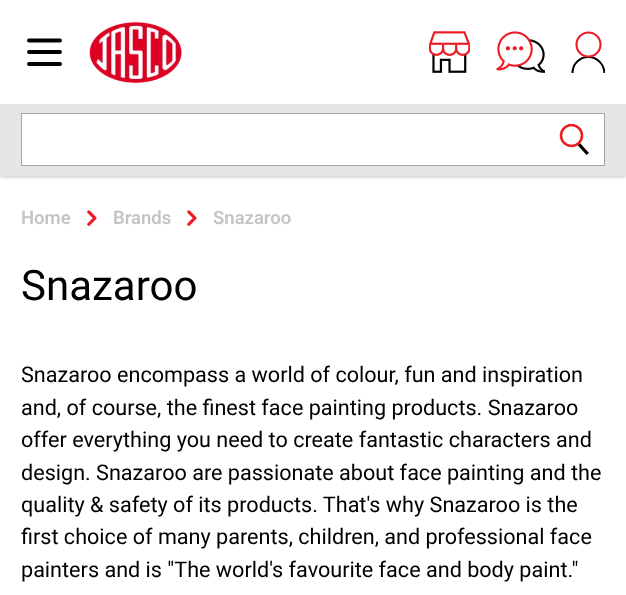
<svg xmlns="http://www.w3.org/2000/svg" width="626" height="595">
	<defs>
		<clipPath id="clip1"><rect x="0" y="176" width="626" height="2" /></clipPath>
		<clipPath id="clip2"><rect x="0" y="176" width="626" height="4" /></clipPath>
		<clipPath id="clip3"><rect x="571" y="31" width="34" height="42" /></clipPath>
		<clipPath id="clip4"><rect x="559" y="124" width="31" height="31" /></clipPath>
	</defs>
	<rect width="100%" height="100%" fill="#FFFFFF" />
	<g clip-path="url(#clip1)">
		<rect x="0" y="1" width="626" height="177" fill="#000000" fill-opacity="0.06" filter="blur(1px)" />
	</g>
	<g clip-path="url(#clip2)">
		<rect x="0" y="1" width="626" height="177" fill="#000000" fill-opacity="0.1" filter="blur(2px)" />
	</g>
	<path d="M29 40.5H60M29 52H60M29 64H60" fill="none" stroke="#000000" stroke-width="3.9" stroke-linecap="round" stroke-linejoin="round" />
	<image x="89" y="21" width="93" height="63" href="assets/img1.png" />
	<image x="429" y="31" width="41" height="42" href="assets/img2.png" />
	<image x="496" y="31" width="49" height="42" href="assets/img3.png" />
	<g clip-path="url(#clip3)">
		<path d="M604.5 73C604 64 597 57 588.5 57C579.5 57 572.5 64 572.5 73" fill="none" stroke="#000000" stroke-width="2.1" />
	</g>
	<circle cx="588.5" cy="44.5" r="12" fill="none" stroke="#ED1C24" stroke-width="2.1" />
	<rect x="0" y="104" width="626" height="72" fill="#E6E6E6" />
	<rect x="21.5" y="113.5" width="583" height="52" fill="#FFFFFF" stroke="#A5A5A5" />
	<path d="M577.5 145L580 143L589 153L586.5 155Z" fill="#000000" />
	<g clip-path="url(#clip4)">
		<circle cx="571.5" cy="135.5" r="10.5" fill="none" stroke="#ED1C24" stroke-width="2.5" />
	</g>
	<text x="21" y="224" font-family="Roboto" font-size="18.5" font-weight="600" fill="#C4C4C4">Home</text>
	<image x="87" y="210" width="10" height="16" href="assets/img4.png" />
	<text x="113" y="224" font-family="Roboto" font-size="18.5" font-weight="600" fill="#C4C4C4">Brands</text>
	<image x="187" y="210" width="10" height="16" href="assets/img4.png" />
	<text x="213" y="224" font-family="Roboto" font-size="18.5" font-weight="600" fill="#C4C4C4">Snazaroo</text>
	<text x="21" y="300" font-family="Roboto" font-size="42" fill="#000000">Snazaroo</text>
	<g font-family="Roboto" font-size="21.6" fill="#000000">
		<text x="21" y="382">Snazaroo encompass a world of colour, fun and inspiration</text>
		<text x="21" y="415">and, of course, the finest face painting products. Snazaroo</text>
		<text x="21" y="447">offer everything you need to create fantastic characters and</text>
		<text x="21" y="480">design. Snazaroo are passionate about face painting and the</text>
		<text x="21" y="512">quality &amp; safety of its products. That's why Snazaroo is the</text>
		<text x="21" y="544">first choice of many parents, children, and professional face</text>
		<text x="21" y="577">painters and is "The world's favourite face and body paint."</text>
	</g>
</svg>
